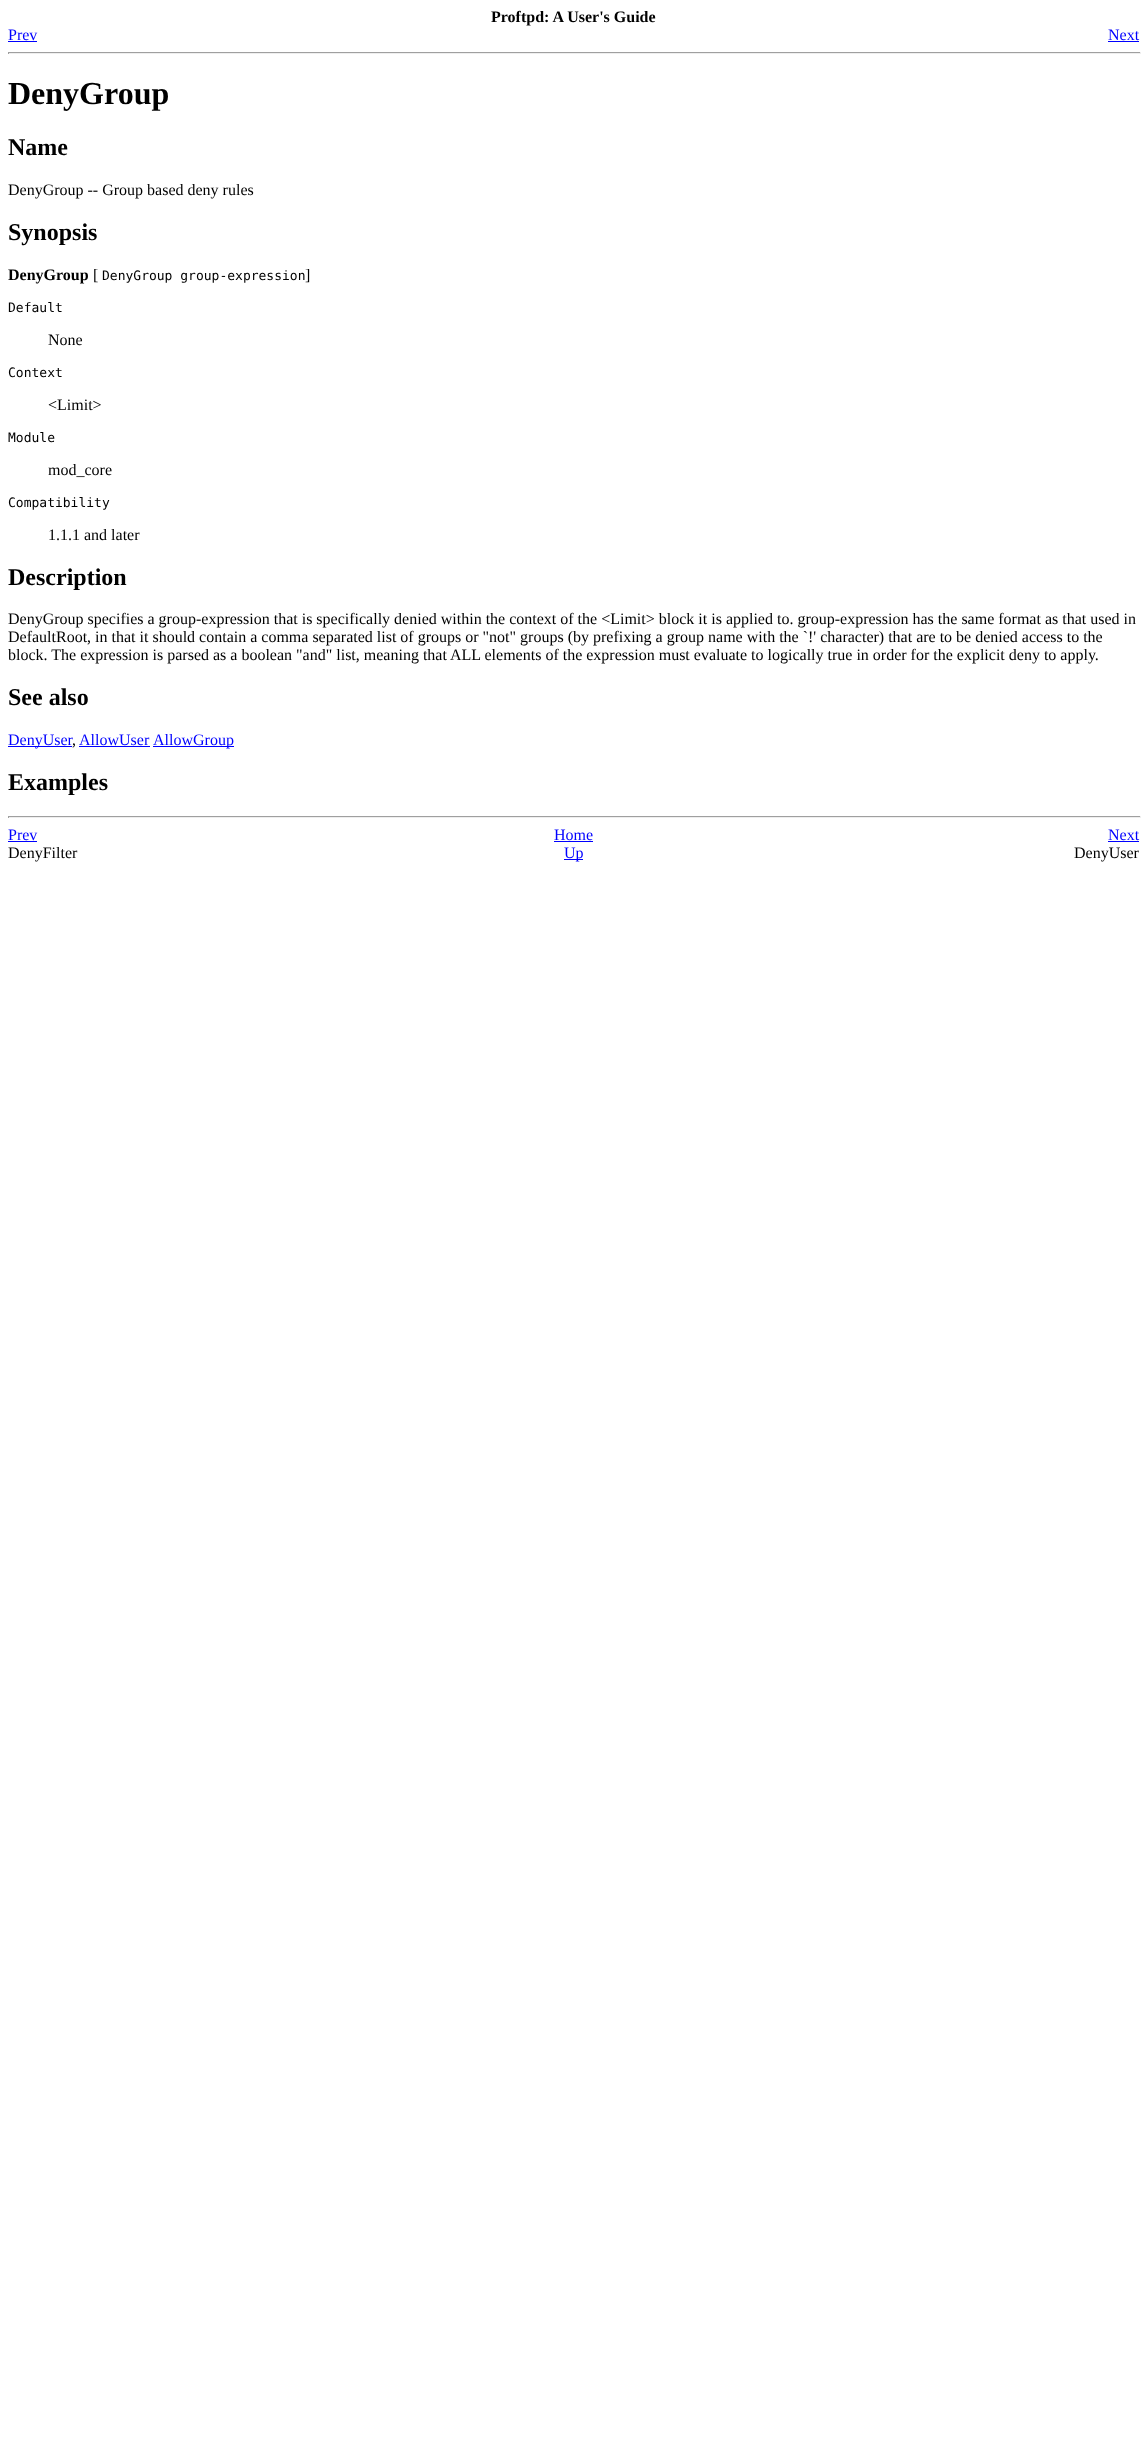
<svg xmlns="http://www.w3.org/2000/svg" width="1147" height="2457">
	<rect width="100%" height="100%" fill="#FFFFFF" />
	<text x="491" y="22" font-family="Liberation Serif" font-size="16" font-weight="700" fill="#000000">Proftpd: A User's Guide</text>
	<text x="8" y="40" font-family="Liberation Serif" font-size="16" fill="#0000FF">Prev</text>
	<rect x="8" y="41" width="29" height="1" fill="#0000FF" />
	<text x="1108" y="40" font-family="Liberation Serif" font-size="16" fill="#0000FF">Next</text>
	<rect x="1108" y="41" width="31" height="1" fill="#0000FF" />
	<rect x="8" y="52" width="1133" height="1" fill="#9F9F9F" />
	<rect x="1140" y="52" width="1" height="2" fill="#EEEEEE" />
	<rect x="8" y="53" width="1133" height="1" fill="#EEEEEE" />
	<rect x="8" y="52" width="1" height="2" fill="#9F9F9F" />
	<text x="8" y="104" font-family="Liberation Serif" font-size="32" font-weight="700" fill="#000000">DenyGroup</text>
	<text x="8" y="155" font-family="Liberation Serif" font-size="24" font-weight="700" fill="#000000">Name</text>
	<text x="8" y="195" font-family="Liberation Serif" font-size="16" fill="#000000">DenyGroup -- Group based deny rules</text>
	<text x="8" y="240" font-family="Liberation Serif" font-size="24" font-weight="700" fill="#000000">Synopsis</text>
	<text x="8" y="280" font-family="Liberation Serif" font-size="16" font-weight="700" fill="#000000">DenyGroup</text>
	<text x="93" y="280" font-family="Liberation Serif" font-size="16" fill="#000000">[</text>
	<text x="102" y="280" font-family="DejaVu Sans Mono" font-size="13" fill="#000000">DenyGroup group-expression</text>
	<text x="305" y="280" font-family="Liberation Serif" font-size="16" fill="#000000">]</text>
	<text x="8" y="312" font-family="DejaVu Sans Mono" font-size="13" fill="#000000">Default</text>
	<text x="48" y="345" font-family="Liberation Serif" font-size="16" fill="#000000">None</text>
	<text x="8" y="377" font-family="DejaVu Sans Mono" font-size="13" fill="#000000">Context</text>
	<text x="48" y="410" font-family="Liberation Serif" font-size="16" fill="#000000">&lt;Limit&gt;</text>
	<text x="8" y="442" font-family="DejaVu Sans Mono" font-size="13" fill="#000000">Module</text>
	<text x="48" y="475" font-family="Liberation Serif" font-size="16" fill="#000000">mod_core</text>
	<text x="8" y="507" font-family="DejaVu Sans Mono" font-size="13" fill="#000000">Compatibility</text>
	<text x="48" y="540" font-family="Liberation Serif" font-size="16" fill="#000000">1.1.1 and later</text>
	<text x="8" y="585" font-family="Liberation Serif" font-size="24" font-weight="700" fill="#000000">Description</text>
	<g font-family="Liberation Serif" font-size="16" fill="#000000">
		<text x="8" y="624">DenyGroup specifies a group-expression that is specifically denied within the context of the &lt;Limit&gt; block it is applied to. group-expression has the same format as that used in</text>
		<text x="8" y="642">DefaultRoot, in that it should contain a comma separated list of groups or "not" groups (by prefixing a group name with the `!' character) that are to be denied access to the</text>
		<text x="8" y="660">block. The expression is parsed as a boolean "and" list, meaning that ALL elements of the expression must evaluate to logically true in order for the explicit deny to apply.</text>
	</g>
	<text x="8" y="705" font-family="Liberation Serif" font-size="24" font-weight="700" fill="#000000">See also</text>
	<rect x="8" y="746" width="64" height="1" fill="#0000FF" />
	<text x="8" y="745" font-family="Liberation Serif" font-size="16" fill="#0000FF">DenyUser</text>
	<text x="72" y="745" font-family="Liberation Serif" font-size="16" fill="#000000">,</text>
	<text x="79" y="745" font-family="Liberation Serif" font-size="16" fill="#0000FF">AllowUser</text>
	<rect x="79" y="746" width="71" height="1" fill="#0000FF" />
	<rect x="153" y="746" width="81" height="1" fill="#0000FF" />
	<text x="153" y="745" font-family="Liberation Serif" font-size="16" fill="#0000FF">AllowGroup</text>
	<text x="8" y="790" font-family="Liberation Serif" font-size="24" font-weight="700" fill="#000000">Examples</text>
	<rect x="8" y="816" width="1133" height="1" fill="#9F9F9F" />
	<rect x="1140" y="816" width="1" height="2" fill="#EEEEEE" />
	<rect x="8" y="817" width="1133" height="1" fill="#EEEEEE" />
	<rect x="8" y="816" width="1" height="2" fill="#9F9F9F" />
	<text x="8" y="840" font-family="Liberation Serif" font-size="16" fill="#0000FF">Prev</text>
	<rect x="8" y="841" width="29" height="1" fill="#0000FF" />
	<text x="554" y="840" font-family="Liberation Serif" font-size="16" fill="#0000FF">Home</text>
	<rect x="554" y="841" width="39" height="1" fill="#0000FF" />
	<text x="1108" y="840" font-family="Liberation Serif" font-size="16" fill="#0000FF">Next</text>
	<rect x="1108" y="841" width="31" height="1" fill="#0000FF" />
	<text x="8" y="858" font-family="Liberation Serif" font-size="16" fill="#000000">DenyFilter</text>
	<rect x="564" y="859" width="19" height="1" fill="#0000FF" />
	<text x="564" y="858" font-family="Liberation Serif" font-size="16" fill="#0000FF">Up</text>
	<text x="1074" y="858" font-family="Liberation Serif" font-size="16" fill="#000000">DenyUser</text>
</svg>
